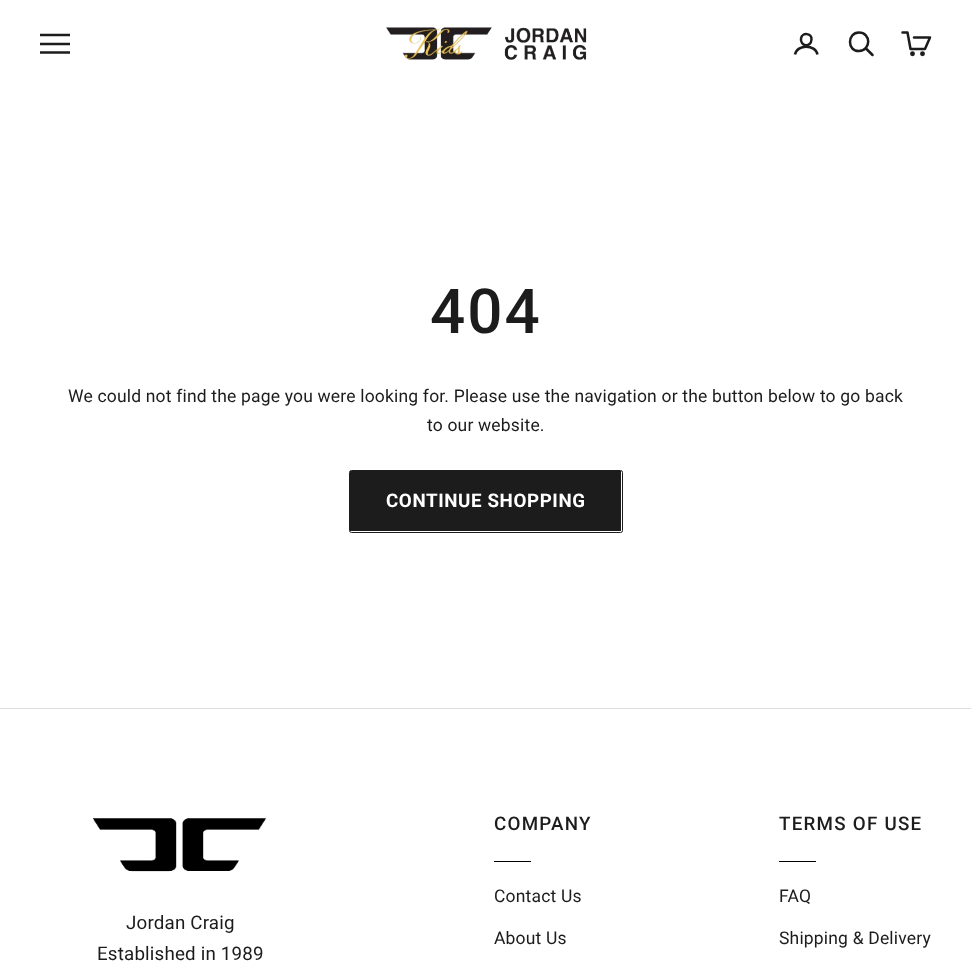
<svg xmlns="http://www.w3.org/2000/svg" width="971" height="970">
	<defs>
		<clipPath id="clip1"><rect x="40" y="29" width="30" height="30" /></clipPath>
	</defs>
	<rect width="100%" height="100%" fill="#FFFFFF" />
	<g clip-path="url(#clip1)">
		<path d="M41 52.5H69M41 44H69M41 35H69" fill="none" stroke="#1C1C1C" stroke-width="2.5" stroke-linecap="square" />
	</g>
	<image x="386" y="27" width="201" height="33" href="assets/img1.png" />
	<path d="M811.5 39.5C811 48 800 46.5 801 38.5C802 32 812 33 811.5 39.5Z" fill="none" stroke="#1C1C1C" stroke-width="2.5" stroke-linecap="round" stroke-linejoin="round" />
	<path d="M795 54.5C797 44 815.5 44 817.5 54.5" fill="none" stroke="#1C1C1C" stroke-width="2.5" />
	<path d="M859 32.5C847 32.5 847 51.5 859 51C871.5 50.5 871 32.5 859 32.5Z" fill="none" stroke="#1C1C1C" stroke-width="2.5" />
	<path d="M866 48.5L872.5 55" fill="none" stroke="#1C1C1C" stroke-width="2.5" stroke-linecap="round" />
	<path d="M914 37.5H930L925 49H910.5L907.5 32.5H902.5" fill="none" stroke="#1C1C1C" stroke-width="2.5" stroke-linecap="round" stroke-linejoin="round" />
	<circle cx="912.5" cy="53.8" r="1.2" fill="none" stroke="#1C1C1C" stroke-width="2.5" />
	<circle cx="922.5" cy="53.8" r="1.2" fill="none" stroke="#1C1C1C" stroke-width="2.5" />
	<text x="430" y="333" font-family="Roboto" font-size="62" font-weight="500" letter-spacing="2" fill="#1C1C1C">404</text>
	<g font-family="Roboto" font-size="17.5" letter-spacing="0.18" fill="#1C1C1C">
		<text x="68" y="402">We could not find the page you were looking for. Please use the navigation or the button below to go back</text>
		<text x="427" y="431">to our website.</text>
	</g>
	<rect x="350" y="471" width="271" height="60" fill="#1C1C1C" />
	<rect x="349.5" y="470.5" width="273" height="62" rx="2" fill="none" stroke="#1C1C1C" />
	<text x="386" y="507" font-family="Roboto" font-size="18.75" font-weight="700" letter-spacing="0.6" fill="#FFFFFF">CONTINUE SHOPPING</text>
	<rect x="0" y="708" width="971" height="1" fill="#DDDDDD" />
	<image x="93" y="817" width="174" height="55" href="assets/img2.png" />
	<g font-family="Roboto" font-size="18.75" letter-spacing="0.18" fill="#1C1C1C">
		<text x="126" y="929">Jordan Craig</text>
		<text x="97" y="960">Established in 1989</text>
	</g>
	<text x="494" y="830" font-family="Roboto" font-size="18.75" font-weight="500" letter-spacing="1.25" fill="#1C1C1C">COMPANY</text>
	<rect x="494" y="861" width="37" height="1" fill="#000000" />
	<g font-family="Roboto" font-size="17.5" letter-spacing="0.18" fill="#1C1C1C">
		<text x="494" y="902">Contact Us</text>
		<text x="494" y="944">About Us</text>
	</g>
	<text x="779" y="830" font-family="Roboto" font-size="18.75" font-weight="500" letter-spacing="1.25" fill="#1C1C1C">TERMS OF USE</text>
	<rect x="779" y="861" width="37" height="1" fill="#000000" />
	<g font-family="Roboto" font-size="17.5" letter-spacing="0.18" fill="#1C1C1C">
		<text x="779" y="902">FAQ</text>
		<text x="779" y="944">Shipping &amp; Delivery</text>
	</g>
</svg>
